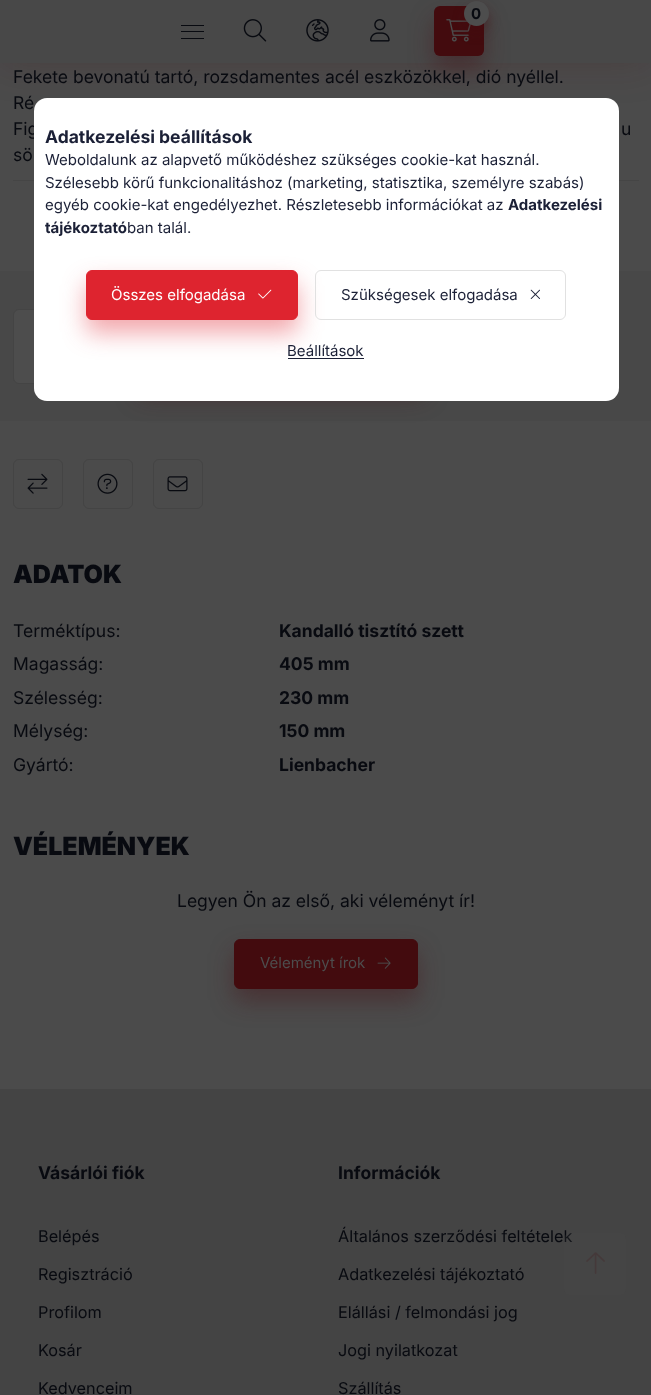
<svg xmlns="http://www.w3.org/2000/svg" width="651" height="1395">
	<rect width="100%" height="100%" fill="#4B4B4B" />
	<rect x="0" y="0" width="651" height="63" fill="#430B0E" fill-opacity="0.2" filter="blur(19px)" />
	<rect x="0" y="0" width="651" height="63" fill="#484848" />
	<rect x="434" y="19" width="50" height="50" rx="6" fill="#430B0E" fill-opacity="0.4" filter="blur(12.5px)" />
	<rect x="434" y="6" width="50" height="50" rx="6" fill="#430B0E" />
	<image x="446" y="19" width="25" height="23" href="assets/img1.png" />
	<rect x="464" y="8" width="25" height="25" rx="12.5" fill="#430B0E" fill-opacity="0.4" filter="blur(6px)" />
	<circle cx="476.5" cy="13.5" r="12.5" fill="#4D4D4D" />
	<text x="471" y="19" font-family="Inter" font-size="15" font-weight="700" fill="#080A10">0</text>
	<rect x="181" y="25" width="23" height="1" fill="#080A10" />
	<rect x="181" y="31" width="23" height="1" fill="#080A10" />
	<rect x="181" y="38" width="23" height="1" fill="#080A10" />
	<image x="243" y="19" width="24" height="23" href="assets/img2.png" />
	<image x="306" y="19" width="23" height="23" href="assets/img3.png" />
	<image x="370" y="19" width="20" height="23" href="assets/img4.png" />
	<g font-family="Inter" font-size="17.5" fill="#080A10">
		<text x="13" y="83">Fekete bevonatú tartó, rozsdamentes acél eszközökkel, dió nyéllel.</text>
		<text x="13" y="109">Ré</text>
		<text x="13" y="135">Fig</text>
		<text x="621" y="135">u</text>
		<text x="13" y="161">sö</text>
	</g>
	<rect x="13" y="180" width="626" height="1" fill="#454545" />
	<rect x="0" y="271" width="651" height="150" fill="#484848" />
	<rect x="13.5" y="309.5" width="111" height="74" rx="5.5" fill="#4D4D4D" stroke="#444444" />
	<rect x="138" y="321" width="287" height="75" rx="6" fill="#430B0E" fill-opacity="0.4" filter="blur(12.5px)" />
	<rect x="13.5" y="459.5" width="49" height="49" rx="5.5" fill="none" stroke="#444444" />
	<image x="27" y="473" width="21" height="21" href="assets/img5.png" />
	<rect x="83.5" y="459.5" width="49" height="49" rx="5.5" fill="none" stroke="#444444" />
	<image x="97" y="473" width="21" height="21" href="assets/img6.png" />
	<rect x="153.5" y="459.5" width="49" height="49" rx="5.5" fill="none" stroke="#444444" />
	<image x="167" y="476" width="21" height="16" href="assets/img7.png" />
	<text x="13" y="583" font-family="Inter" font-size="25" font-weight="900" fill="#080A10">ADATOK</text>
	<text x="13" y="637" font-family="Inter" font-size="17.5" fill="#080A10">Terméktípus:</text>
	<text x="279" y="637" font-family="Inter" font-size="17.5" font-weight="700" fill="#080A10">Kandalló tisztító szett</text>
	<text x="13" y="670" font-family="Inter" font-size="17.5" fill="#080A10">Magasság:</text>
	<text x="279" y="670" font-family="Inter" font-size="17.5" font-weight="700" fill="#080A10">405 mm</text>
	<text x="13" y="704" font-family="Inter" font-size="17.5" fill="#080A10">Szélesség:</text>
	<text x="279" y="704" font-family="Inter" font-size="17.5" font-weight="700" fill="#080A10">230 mm</text>
	<text x="13" y="737" font-family="Inter" font-size="17.5" fill="#080A10">Mélység:</text>
	<text x="279" y="737" font-family="Inter" font-size="17.5" font-weight="700" fill="#080A10">150 mm</text>
	<text x="13" y="771" font-family="Inter" font-size="17.5" fill="#080A10">Gyártó:</text>
	<text x="279" y="771" font-family="Inter" font-size="17.5" font-weight="700" fill="#080A10">Lienbacher</text>
	<text x="13" y="855" font-family="Inter" font-size="25" font-weight="900" fill="#080A10">VÉLEMÉNYEK</text>
	<text x="177" y="907" font-family="Inter" font-size="17.5" fill="#080A10">Legyen Ön az első, aki véleményt ír!</text>
	<rect x="234" y="951" width="184" height="50" rx="6" fill="#430B0E" fill-opacity="0.4" filter="blur(12.5px)" />
	<rect x="234.5" y="939.5" width="183" height="49" rx="5.5" fill="#430B0E" stroke="#430B0E" />
	<text x="260" y="968" font-family="Inter" font-size="15" fill="#4D4D4D">Véleményt írok</text>
	<image x="377" y="957" width="14" height="12" href="assets/img8.png" />
	<rect x="0" y="1089" width="651" height="306" fill="#444444" />
	<text x="38" y="1179" font-family="Inter" font-size="17.5" font-weight="700" fill="#080A10">Vásárlói fiók</text>
	<g font-family="Inter" font-size="16.25" fill="#080A10">
		<text x="38" y="1242">Belépés</text>
		<text x="38" y="1280">Regisztráció</text>
		<text x="38" y="1318">Profilom</text>
		<text x="38" y="1356">Kosár</text>
		<text x="38" y="1394">Kedvenceim</text>
	</g>
	<text x="338" y="1179" font-family="Inter" font-size="17.5" font-weight="700" fill="#080A10">Információk</text>
	<g font-family="Inter" font-size="16.25" fill="#080A10">
		<text x="338" y="1242">Általános szerződési feltételek</text>
		<text x="338" y="1280">Adatkezelési tájékoztató</text>
		<text x="338" y="1318">Elállási / felmondási jog</text>
		<text x="338" y="1356">Jogi nyilatkozat</text>
		<text x="338" y="1394">Szállítás</text>
	</g>
	<rect x="34" y="98" width="585" height="303" rx="13" fill="#FFFFFF" />
	<text x="45" y="143" font-family="Inter" font-size="17.5" font-weight="700" fill="#1B2036">Adatkezelési beállítások</text>
	<g font-family="Inter" font-size="15" fill="#1B2036">
		<text x="45" y="165">Weboldalunk az alapvető működéshez szükséges cookie-kat használ.</text>
		<text x="45" y="188">Szélesebb körű funkcionalitáshoz (marketing, statisztika, személyre szabás)</text>
		<text x="45" y="210">egyéb cookie-kat engedélyezhet. Részletesebb információkat az</text>
	</g>
	<g font-family="Inter" font-size="15" font-weight="700" fill="#1B2036">
		<text x="508" y="210">Adatkezelési</text>
		<text x="45" y="233">tájékoztató</text>
	</g>
	<text x="127" y="233" font-family="Inter" font-size="15" fill="#1B2036">ban talál.</text>
	<rect x="86" y="283" width="212" height="50" rx="6" fill="#DE242F" fill-opacity="0.4" filter="blur(12.5px)" />
	<rect x="86.5" y="270.5" width="211" height="49" rx="5.5" fill="#DE242F" stroke="#DE242F" />
	<text x="111" y="300" font-family="Inter" font-size="15" fill="#FFFFFF">Összes elfogadása</text>
	<image x="258" y="289" width="14" height="10" href="assets/img9.png" />
	<rect x="315.5" y="270.5" width="250" height="49" rx="5.5" fill="none" stroke="#E1E1E1" />
	<text x="341" y="300" font-family="Inter" font-size="15" fill="#1B2036">Szükségesek elfogadása</text>
	<image x="530" y="289" width="10" height="10" href="assets/img10.png" />
	<text x="287" y="356" font-family="Inter" font-size="15" fill="#1B2036">Beállítások</text>
	<rect x="288" y="358" width="76" height="1" fill="#1B2036" />
	<rect x="564" y="1233" width="62" height="62" rx="6" fill="#4D4D4D" fill-opacity="0.2" />
	<image x="586" y="1252" width="19" height="22" href="assets/img11.png" />
</svg>
